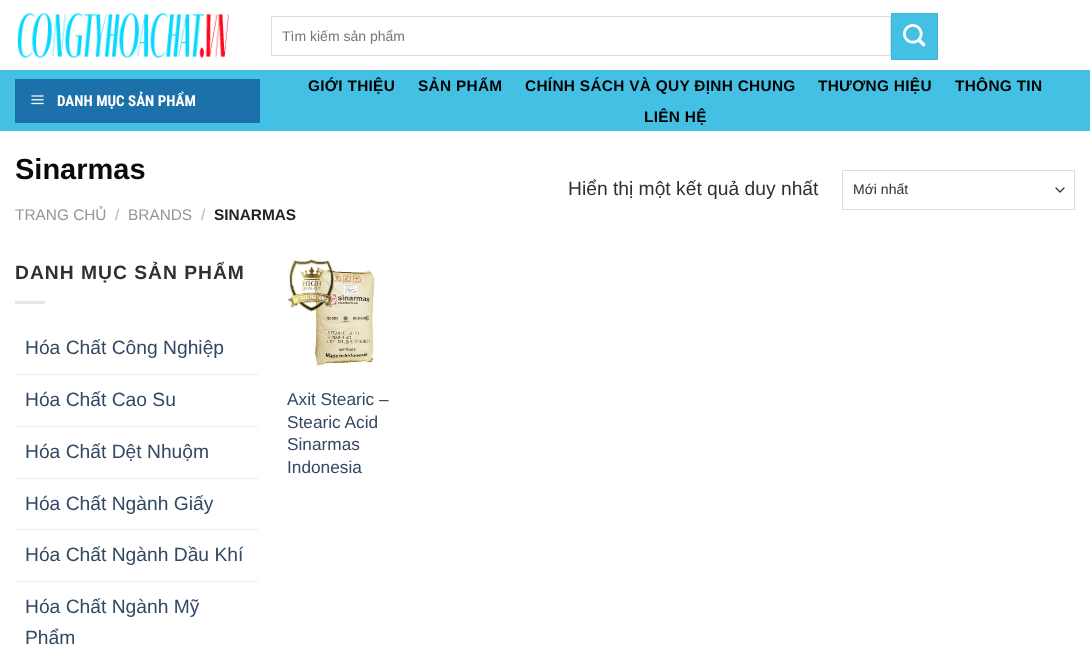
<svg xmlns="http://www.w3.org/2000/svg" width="1090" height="655">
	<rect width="100%" height="100%" fill="#FFFFFF" />
	<image x="17" y="13" width="212" height="45" href="assets/img1.png" />
	<rect x="271.5" y="16.5" width="619" height="39" fill="none" stroke="#DDDDDD" />
	<text x="282" y="41" font-family="Liberation Sans" font-size="14" fill="#757575">Tìm kiếm sản phẩm</text>
	<rect x="891.5" y="13.5" width="46" height="46" fill="#43C0E4" stroke="#40B6D9" />
	<image x="903" y="24" width="23" height="23" href="assets/img2.png" />
	<rect x="0" y="70" width="1090" height="61" fill="#43C0E4" />
	<rect x="15" y="79" width="245" height="44" fill="#1D71AB" />
	<image x="31" y="95" width="13" height="10" href="assets/img3.png" />
	<text x="57" y="106" font-family="Roboto Condensed" font-size="15" font-weight="700" fill="#FFFFFF">DANH MỤC SẢN PHẨM</text>
	<g font-family="Liberation Sans" font-size="15.4" font-weight="700" letter-spacing="0.3" fill="#000000">
		<text x="308" y="91">GIỚI THIỆU</text>
		<text x="418" y="91">SẢN PHẨM</text>
		<text x="525" y="91">CHÍNH SÁCH VÀ QUY ĐỊNH CHUNG</text>
		<text x="818" y="91">THƯƠNG HIỆU</text>
		<text x="955" y="91">THÔNG TIN</text>
		<text x="644" y="122">LIÊN HỆ</text>
	</g>
	<text x="15" y="179" font-family="Liberation Sans" font-size="29" font-weight="700" fill="#0A0A0A">Sinarmas</text>
	<text x="15" y="220" font-family="Liberation Sans" font-size="15.4" fill="#949494">TRANG CHỦ</text>
	<text x="115" y="220" font-family="Liberation Sans" font-size="15.4" fill="#B2B2B2">/</text>
	<text x="128" y="220" font-family="Liberation Sans" font-size="15.4" fill="#949494">BRANDS</text>
	<text x="201" y="220" font-family="Liberation Sans" font-size="15.4" fill="#B2B2B2">/</text>
	<text x="214" y="220" font-family="Liberation Sans" font-size="15.4" font-weight="700" fill="#222222">SINARMAS</text>
	<text x="568" y="195" font-family="Liberation Sans" font-size="19.25" fill="#303030">Hiển thị một kết quả duy nhất</text>
	<path d="M1056 188L1060 192L1064 188" fill="none" stroke="#333333" stroke-width="1.3" stroke-linecap="round" stroke-linejoin="round" />
	<rect x="842.5" y="170.5" width="232" height="39" fill="none" stroke="#DDDDDD" />
	<text x="853" y="194" font-family="Liberation Sans" font-size="14" fill="#303030">Mới nhất</text>
	<text x="15" y="279" font-family="Liberation Sans" font-size="19.25" font-weight="700" letter-spacing="1" fill="#303030">DANH MỤC SẢN PHẨM</text>
	<rect x="15" y="301" width="30" height="3" fill="#E6E6E6" />
	<text x="25" y="354" font-family="Liberation Sans" font-size="19.25" fill="#334862">Hóa Chất Công Nghiệp</text>
	<rect x="15" y="374" width="243" height="1" fill="#ECECEC" />
	<text x="25" y="406" font-family="Liberation Sans" font-size="19.25" fill="#334862">Hóa Chất Cao Su</text>
	<rect x="15" y="426" width="243" height="1" fill="#ECECEC" />
	<text x="25" y="458" font-family="Liberation Sans" font-size="19.25" fill="#334862">Hóa Chất Dệt Nhuộm</text>
	<rect x="15" y="478" width="243" height="1" fill="#ECECEC" />
	<text x="25" y="510" font-family="Liberation Sans" font-size="19.25" fill="#334862">Hóa Chất Ngành Giấy</text>
	<rect x="15" y="529" width="243" height="1" fill="#ECECEC" />
	<text x="25" y="561" font-family="Liberation Sans" font-size="19.25" fill="#334862">Hóa Chất Ngành Dầu Khí</text>
	<rect x="15" y="581" width="243" height="1" fill="#ECECEC" />
	<g font-family="Liberation Sans" font-size="19.25" fill="#334862">
		<text x="25" y="613">Hóa Chất Ngành Mỹ</text>
		<text x="25" y="644">Phẩm</text>
	</g>
	<image x="287" y="258" width="88" height="109" href="assets/img4.png" />
	<g font-family="Liberation Sans" font-size="17.25" fill="#334862">
		<text x="287" y="405">Axit Stearic –</text>
		<text x="287" y="428">Stearic Acid</text>
		<text x="287" y="450">Sinarmas</text>
		<text x="287" y="473">Indonesia</text>
	</g>
</svg>
